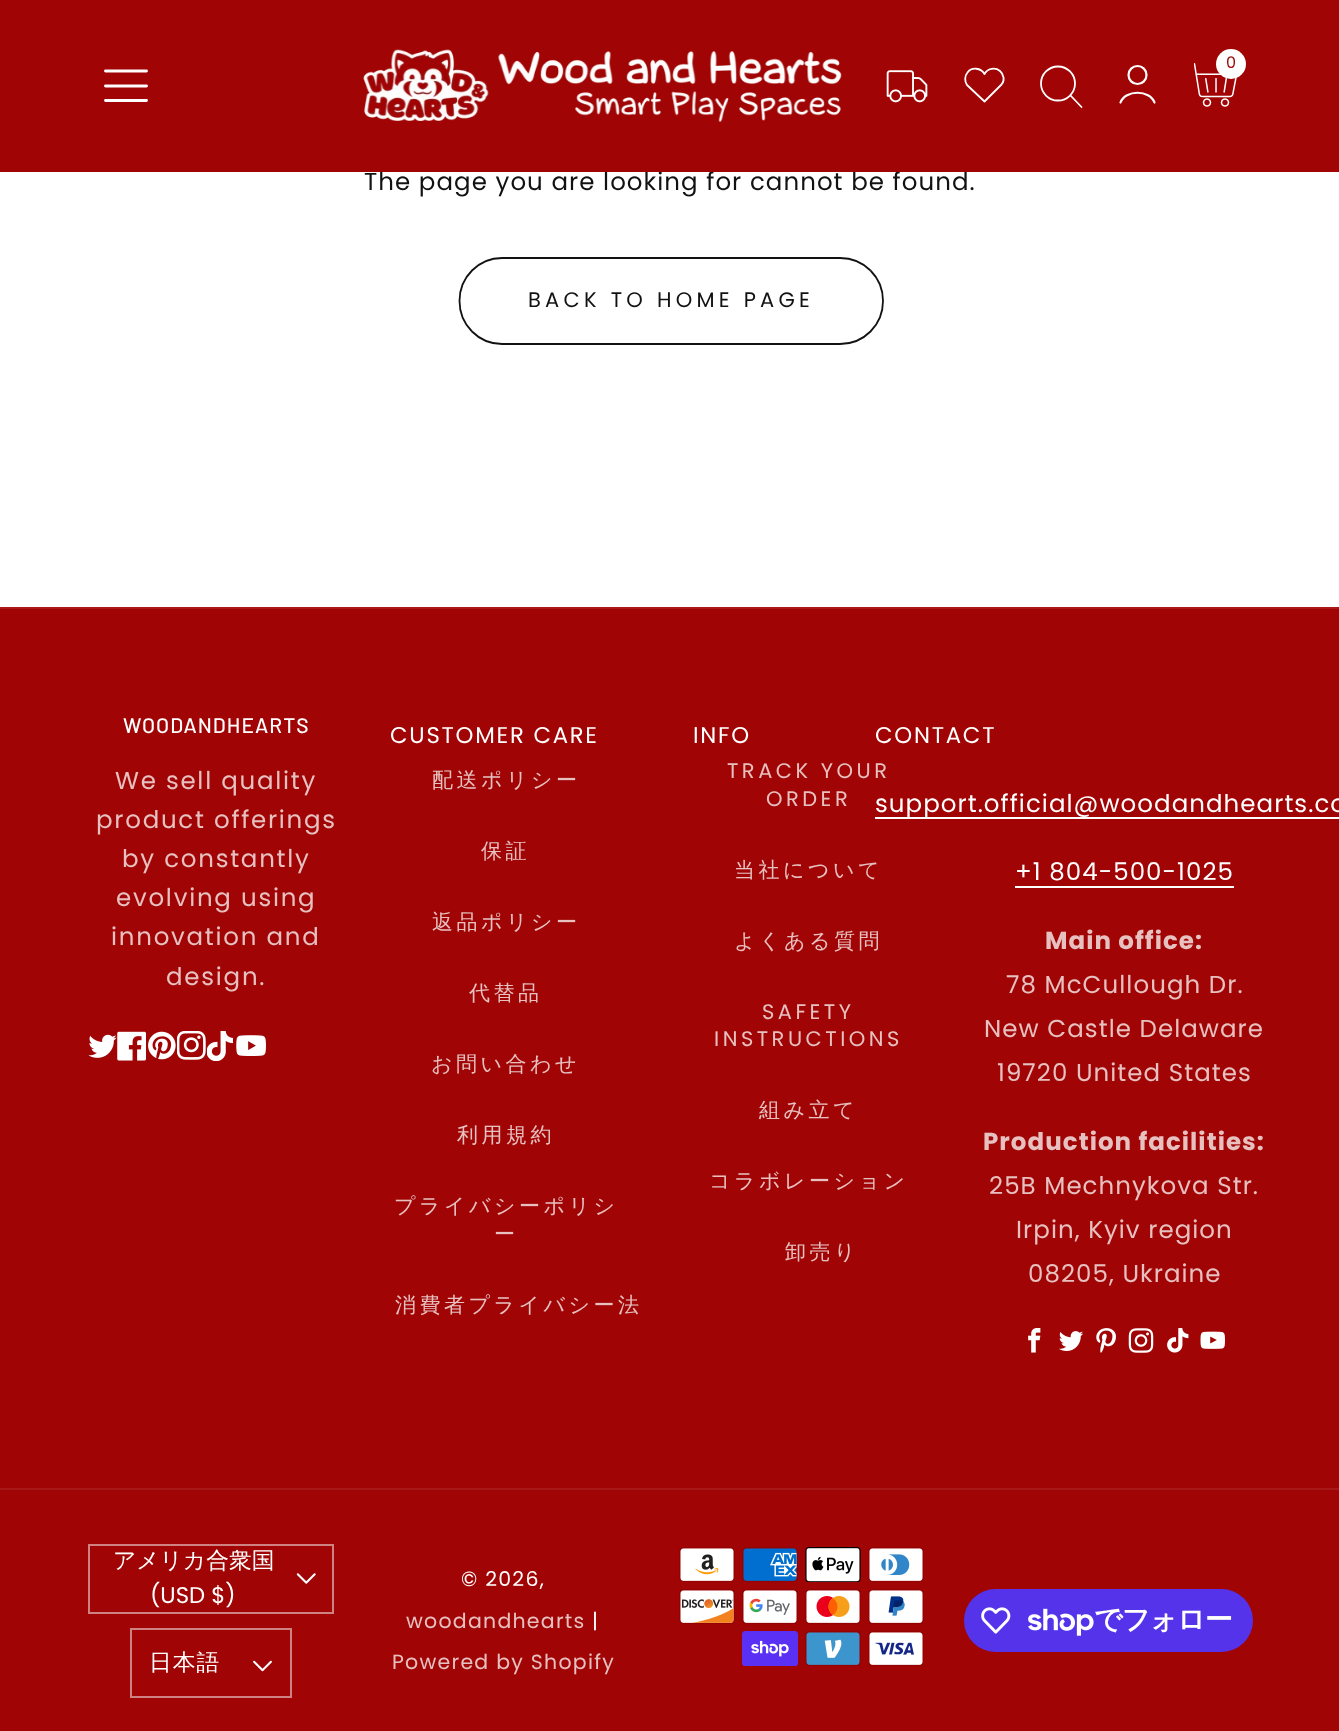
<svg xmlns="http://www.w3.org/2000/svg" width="1339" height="1731">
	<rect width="100%" height="100%" fill="#FFFFFF" />
	<text x="364" y="190" font-family="Poppins" font-size="24.5" letter-spacing="1.05" fill="#121212">The page you are looking for cannot be found.</text>
	<rect x="0" y="0" width="1339" height="172" fill="#A00404" />
	<image x="363" y="49" width="479" height="73" href="assets/img1.png" />
	<image x="1194" y="63" width="43" height="44" href="assets/img2.png" />
	<circle cx="1231" cy="64" r="15" fill="#FFFFFF" />
	<text x="1226" y="68" font-family="Poppins" font-size="16" letter-spacing="1.05" fill="#A00404">0</text>
	<image x="886" y="70" width="42" height="33" href="assets/img3.png" />
	<path d="M984.5 101.5L967 85C964.5 81.5 964.5 76 967.5 72.5C971.5 67 981 67.5 984.5 74C987.5 68.5 995 67 1000 71C1004 74.5 1005 80.5 1001.5 84.5Z" fill="none" stroke="#FFFFFF" stroke-width="1.8" stroke-linecap="round" stroke-linejoin="round" />
	<circle cx="1058" cy="83.5" r="17" fill="none" stroke="#FFFFFF" stroke-width="1.8" />
	<path d="M1071 96L1081.5 107" fill="none" stroke="#FFFFFF" stroke-width="1.8" stroke-linecap="round" />
	<path d="M1154.5 102.5C1150 89.5 1125 89.5 1120.5 102.5" fill="none" stroke="#FFFFFF" stroke-width="2.2" stroke-linecap="round" />
	<circle cx="1137.5" cy="75" r="9" fill="none" stroke="#FFFFFF" stroke-width="2.2" />
	<path d="M105.5 71H146.5M105.5 86H146.5M105.5 100.5H146.5" fill="none" stroke="#FFFFFF" stroke-width="2.9" stroke-linecap="round" />
	<path d="M472 331.5C464 323.5 459.5 312.5 459.5 301C459.5 289.5 464 278.5 472 270.5C480 262.5 491 258 502 258H840C851.5 258 862.5 262.5 870.5 270.5" fill="none" stroke="#121212" stroke-width="1.8" />
	<path d="M870.5 270.5C878.5 278.5 883 289.5 883 301C883 312.5 878.5 323.5 870.5 331.5C862.5 339.5 851.5 344 840 344H502C491 344 480 339.5 472 331.5" fill="none" stroke="#121212" stroke-width="1.8" />
	<text x="528" y="307" font-family="Poppins" font-size="21" letter-spacing="4.25" fill="#121212">BACK TO HOME PAGE</text>
	<rect x="0" y="609" width="1339" height="1122" fill="#A00404" />
	<rect x="0" y="607" width="1339" height="2" fill="#A81818" />
	<text x="123" y="733" font-family="Barlow" font-size="21" font-weight="500" letter-spacing="1.05" fill="#FFFFFF">WOODANDHEARTS</text>
	<g font-family="Poppins" font-size="24.5" letter-spacing="1.75" fill="#E7C0C0">
		<text x="115" y="789">We sell quality</text>
		<text x="96" y="828">product offerings</text>
		<text x="122" y="867">by constantly</text>
		<text x="116" y="906">evolving using</text>
		<text x="111" y="945">innovation and</text>
		<text x="166" y="985">design.</text>
	</g>
	<image x="88" y="1034" width="29" height="24" href="assets/img4.png" />
	<image x="117" y="1031" width="29" height="30" href="assets/img5.png" />
	<image x="148" y="1031" width="28" height="29" href="assets/img6.png" />
	<image x="177" y="1031" width="29" height="29" href="assets/img7.png" />
	<image x="207" y="1031" width="26" height="30" href="assets/img8.png" />
	<image x="236" y="1035" width="30" height="22" href="assets/img9.png" />
	<text x="390" y="743" font-family="Poppins" font-size="22.75" letter-spacing="1.75" fill="#FFFFFF">CUSTOMER CARE</text>
	<g font-family="WenQuanYi Zen Hei" font-size="21" font-weight="500" letter-spacing="3.5" fill="#E7C0C0">
		<text x="432" y="787">配送ポリシー</text>
		<text x="481" y="858">保証</text>
		<text x="432" y="929">返品ポリシー</text>
		<text x="469" y="1000">代替品</text>
		<text x="431" y="1071">お問い合わせ</text>
		<text x="457" y="1142">利用規約</text>
		<text x="394" y="1213">プライバシーポリシ</text>
		<text x="494" y="1241">ー</text>
		<text x="395" y="1312">消費者プライバシー法</text>
	</g>
	<text x="693" y="743" font-family="Poppins" font-size="22.75" letter-spacing="1.75" fill="#FFFFFF">INFO</text>
	<g font-family="Poppins" font-size="21" letter-spacing="3.5" fill="#E7C0C0">
		<text x="727" y="778">TRACK YOUR</text>
		<text x="766" y="806">ORDER</text>
	</g>
	<g font-family="WenQuanYi Zen Hei" font-size="21" font-weight="500" letter-spacing="3.5" fill="#E7C0C0">
		<text x="734" y="877">当社について</text>
		<text x="734" y="948">よくある質問</text>
	</g>
	<g font-family="Poppins" font-size="21" letter-spacing="3.5" fill="#E7C0C0">
		<text x="762" y="1019">SAFETY</text>
		<text x="714" y="1046">INSTRUCTIONS</text>
	</g>
	<g font-family="WenQuanYi Zen Hei" font-size="21" font-weight="500" letter-spacing="3.5" fill="#E7C0C0">
		<text x="759" y="1117">組み立て</text>
		<text x="709" y="1188">コラボレーション</text>
		<text x="785" y="1259">卸売り</text>
	</g>
	<text x="875" y="743" font-family="Poppins" font-size="22.75" letter-spacing="1.75" fill="#FFFFFF">CONTACT</text>
	<rect x="875" y="817" width="464" height="2" fill="#FFFFFF" />
	<g font-family="Poppins" font-size="24.5" letter-spacing="1.05" fill="#FFFFFF">
		<text x="875" y="812">support.official@woodandhearts.co</text>
		<text x="1015" y="880">+1 804-500-1025</text>
	</g>
	<rect x="1015" y="886" width="219" height="2" fill="#FFFFFF" />
	<text x="1045" y="949" font-family="Poppins" font-size="24.5" font-weight="700" letter-spacing="1.05" fill="#E7C0C0">Main office:</text>
	<g font-family="Poppins" font-size="24.5" letter-spacing="1.05" fill="#E7C0C0">
		<text x="1006" y="993">78 McCullough Dr.</text>
		<text x="984" y="1037">New Castle Delaware</text>
		<text x="997" y="1081">19720 United States</text>
	</g>
	<text x="983" y="1150" font-family="Poppins" font-size="24.5" font-weight="700" letter-spacing="1.05" fill="#E7C0C0">Production facilities:</text>
	<g font-family="Poppins" font-size="24.5" letter-spacing="1.05" fill="#E7C0C0">
		<text x="989" y="1194">25B Mechnykova Str.</text>
		<text x="1016" y="1238">Irpin, Kyiv region</text>
		<text x="1028" y="1282">08205, Ukraine</text>
	</g>
	<image x="1028" y="1328" width="13" height="25" href="assets/img10.png" />
	<image x="1059" y="1331" width="25" height="20" href="assets/img11.png" />
	<image x="1096" y="1328" width="20" height="25" href="assets/img12.png" />
	<image x="1128" y="1328" width="26" height="25" href="assets/img13.png" />
	<image x="1167" y="1328" width="22" height="25" href="assets/img14.png" />
	<image x="1200" y="1331" width="25" height="18" href="assets/img15.png" />
	<rect x="0" y="1488" width="1339" height="2" fill="#A81818" />
	<image x="296" y="1573" width="20" height="11" href="assets/img16.png" />
	<rect x="89" y="1545" width="244" height="68" fill="none" stroke="#D08282" stroke-width="2" />
	<text x="113" y="1568" font-family="WenQuanYi Zen Hei" font-size="22.75" font-weight="500" fill="#FFFFFF">アメリカ合衆国</text>
	<text x="150" y="1603" font-family="Poppins" font-size="22.75" fill="#FFFFFF">(USD $)</text>
	<rect x="131" y="1629" width="160" height="68" fill="none" stroke="#D08282" stroke-width="2" />
	<text x="149" y="1670" font-family="WenQuanYi Zen Hei" font-size="22.75" font-weight="500" letter-spacing="1" fill="#FFFFFF">日本語</text>
	<image x="253" y="1660" width="19" height="12" href="assets/img17.png" />
	<text x="461" y="1586" font-family="Poppins" font-size="20.5" letter-spacing="1.25" fill="#FFFFFF">© 2026,</text>
	<text x="406" y="1628" font-family="Poppins" font-size="20.5" letter-spacing="1.25" fill="#E7C0C0">woodandhearts</text>
	<text x="592" y="1628" font-family="Poppins" font-size="20.5" letter-spacing="1.25" fill="#FFFFFF">|</text>
	<text x="392" y="1669" font-family="Poppins" font-size="20.5" letter-spacing="1.25" fill="#E7C0C0">Powered by Shopify</text>
	<image x="679" y="1547" width="56" height="35" href="assets/img18.png" />
	<image x="742" y="1547" width="56" height="35" href="assets/img19.png" />
	<image x="805" y="1547" width="56" height="35" href="assets/img20.png" />
	<image x="868" y="1547" width="56" height="35" href="assets/img21.png" />
	<image x="679" y="1589" width="56" height="35" href="assets/img22.png" />
	<image x="742" y="1589" width="56" height="35" href="assets/img23.png" />
	<image x="805" y="1589" width="56" height="35" href="assets/img24.png" />
	<image x="868" y="1589" width="56" height="35" href="assets/img25.png" />
	<image x="742" y="1631" width="56" height="35" href="assets/img26.png" />
	<image x="805" y="1631" width="56" height="35" href="assets/img27.png" />
	<image x="868" y="1631" width="56" height="35" href="assets/img28.png" />
	<rect x="964" y="1589" width="289" height="63" rx="31.5" fill="#5433EB" />
	<image x="981" y="1607" width="30" height="27" href="assets/img29.png" />
	<image x="1028" y="1608" width="66" height="28" href="assets/img30.png" />
	<text x="1094" y="1629" font-family="WenQuanYi Zen Hei" font-size="28" font-weight="700" letter-spacing="-1" fill="#FFFFFF">でフォロー</text>
</svg>
